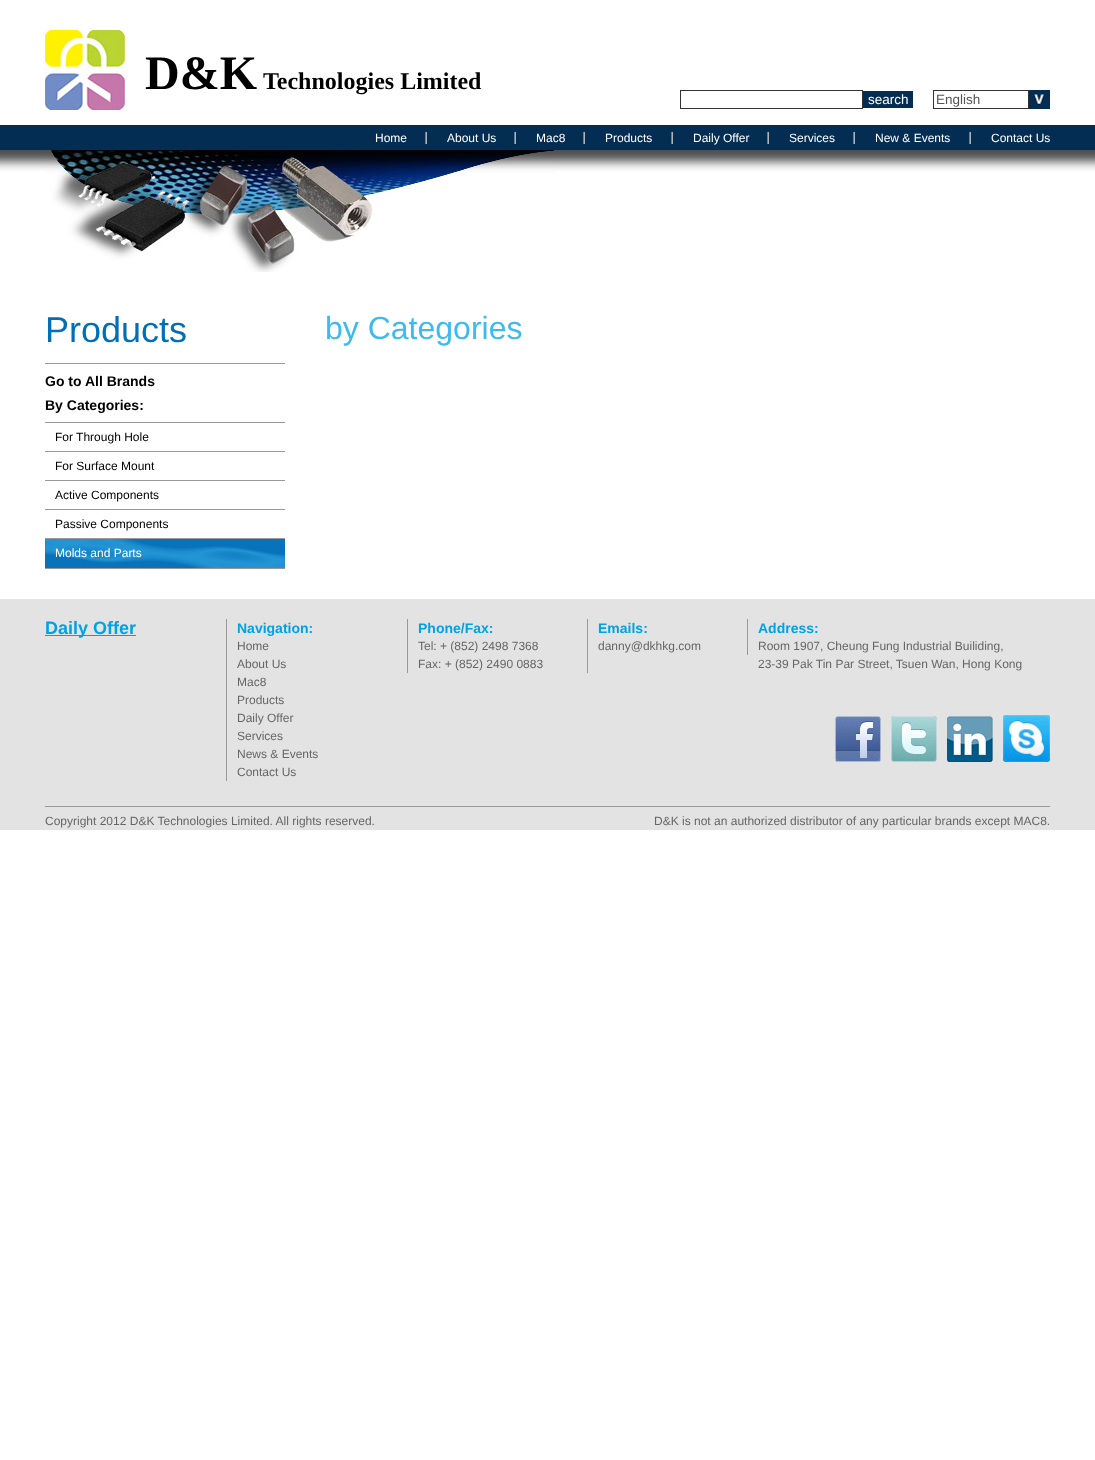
<svg xmlns="http://www.w3.org/2000/svg" width="1095" height="1460">
	<rect width="100%" height="100%" fill="#FFFFFF" />
	<image x="45" y="30" width="80" height="80" href="assets/img1.png" />
	<text x="145" y="89" font-family="Liberation Serif" font-size="48" font-weight="700" fill="#000000">D&amp;K</text>
	<text x="263" y="89" font-family="Liberation Serif" font-size="24" font-weight="700" fill="#000000">Technologies Limited</text>
	<rect x="680.5" y="90.5" width="182" height="18" fill="none" stroke="#333333" />
	<rect x="863" y="91" width="50" height="17" fill="#042D53" />
	<text x="868" y="104" font-family="Liberation Sans" font-size="13.5" fill="#FFFFFF">search</text>
	<rect x="933.5" y="90.5" width="95" height="18" fill="none" stroke="#333333" />
	<text x="936" y="104" font-family="Liberation Sans" font-size="13.5" fill="#545454">English</text>
	<image x="1029" y="90" width="21" height="19" href="assets/img2.png" />
	<image x="0" y="125" width="1095" height="46" href="assets/img3.png" />
	<image x="425" y="131" width="2" height="13" href="assets/img4.png" />
	<text x="375" y="142" font-family="Liberation Sans" font-size="12" fill="#FFFFFF">Home</text>
	<image x="514" y="131" width="2" height="13" href="assets/img4.png" />
	<text x="447" y="142" font-family="Liberation Sans" font-size="12" fill="#FFFFFF">About Us</text>
	<image x="583" y="131" width="2" height="13" href="assets/img4.png" />
	<text x="536" y="142" font-family="Liberation Sans" font-size="12" fill="#FFFFFF">Mac8</text>
	<image x="671" y="131" width="2" height="13" href="assets/img4.png" />
	<text x="605" y="142" font-family="Liberation Sans" font-size="12" fill="#FFFFFF">Products</text>
	<image x="767" y="131" width="2" height="13" href="assets/img4.png" />
	<text x="693" y="142" font-family="Liberation Sans" font-size="12" fill="#FFFFFF">Daily Offer</text>
	<image x="853" y="131" width="2" height="13" href="assets/img4.png" />
	<text x="789" y="142" font-family="Liberation Sans" font-size="12" fill="#FFFFFF">Services</text>
	<image x="969" y="131" width="2" height="13" href="assets/img4.png" />
	<g font-family="Liberation Sans" font-size="12" fill="#FFFFFF">
		<text x="875" y="142">New &amp; Events</text>
		<text x="991" y="142">Contact Us</text>
	</g>
	<image x="45" y="150" width="512" height="122" href="assets/img5.png" />
	<rect x="45" y="363" width="240" height="1" fill="#999999" />
	<text x="45" y="342" font-family="Liberation Sans" font-size="36" fill="#016EB9">Products</text>
	<g font-family="Liberation Sans" font-size="14" font-weight="700" fill="#000000">
		<text x="45" y="386">Go to All Brands</text>
		<text x="45" y="410">By Categories:</text>
	</g>
	<rect x="45" y="422" width="240" height="1" fill="#999999" />
	<text x="55" y="441" font-family="Liberation Sans" font-size="12" fill="#000000">For Through Hole</text>
	<rect x="45" y="451" width="240" height="1" fill="#999999" />
	<text x="55" y="470" font-family="Liberation Sans" font-size="12" fill="#000000">For Surface Mount</text>
	<rect x="45" y="480" width="240" height="1" fill="#999999" />
	<text x="55" y="499" font-family="Liberation Sans" font-size="12" fill="#000000">Active Components</text>
	<rect x="45" y="509" width="240" height="1" fill="#999999" />
	<text x="55" y="528" font-family="Liberation Sans" font-size="12" fill="#000000">Passive Components</text>
	<image x="45" y="539" width="240" height="29" href="assets/img6.png" />
	<rect x="45" y="538" width="240" height="1" fill="#999999" />
	<text x="55" y="557" font-family="Liberation Sans" font-size="12" fill="#FFFFFF">Molds and Parts</text>
	<rect x="45" y="568" width="240" height="1" fill="#999999" />
	<text x="325" y="339" font-family="Liberation Sans" font-size="32" fill="#3FBAEE">by Categories</text>
	<rect x="0" y="599" width="1095" height="231" fill="#E3E3E3" />
	<rect x="45" y="635" width="91" height="1" fill="#00A2E7" />
	<text x="45" y="634" font-family="Liberation Sans" font-size="18" font-weight="700" fill="#00A2E7">Daily Offer</text>
	<rect x="226" y="619" width="1" height="162" fill="#999999" />
	<text x="237" y="633" font-family="Liberation Sans" font-size="14" font-weight="700" fill="#00A2E7">Navigation:</text>
	<g font-family="Liberation Sans" font-size="12" fill="#666666">
		<text x="237" y="650">Home</text>
		<text x="237" y="668">About Us</text>
		<text x="237" y="686">Mac8</text>
		<text x="237" y="704">Products</text>
		<text x="237" y="722">Daily Offer</text>
		<text x="237" y="740">Services</text>
		<text x="237" y="758">News &amp; Events</text>
		<text x="237" y="776">Contact Us</text>
	</g>
	<rect x="587" y="619" width="1" height="54" fill="#999999" />
	<rect x="407" y="619" width="1" height="54" fill="#999999" />
	<text x="418" y="633" font-family="Liberation Sans" font-size="14" font-weight="700" fill="#00A2E7">Phone/Fax:</text>
	<g font-family="Liberation Sans" font-size="12" fill="#666666">
		<text x="418" y="650">Tel: + (852) 2498 7368</text>
		<text x="418" y="668">Fax: + (852) 2490 0883</text>
	</g>
	<rect x="747" y="619" width="1" height="36" fill="#999999" />
	<text x="598" y="633" font-family="Liberation Sans" font-size="14" font-weight="700" fill="#00A2E7">Emails:</text>
	<text x="598" y="650" font-family="Liberation Sans" font-size="12" fill="#666666">danny@dkhkg.com</text>
	<text x="758" y="633" font-family="Liberation Sans" font-size="14" font-weight="700" fill="#00A2E7">Address:</text>
	<g font-family="Liberation Sans" font-size="12" fill="#666666">
		<text x="758" y="650">Room 1907, Cheung Fung Industrial Builiding,</text>
		<text x="758" y="668">23-39 Pak Tin Par Street, Tsuen Wan, Hong Kong</text>
	</g>
	<image x="835" y="716" width="46" height="46" href="assets/img7.png" />
	<image x="891" y="716" width="46" height="46" href="assets/img8.png" />
	<image x="947" y="716" width="46" height="46" href="assets/img9.png" />
	<image x="1003" y="715" width="47" height="47" href="assets/img10.png" />
	<rect x="45" y="806" width="1005" height="1" fill="#999999" />
	<g font-family="Liberation Sans" font-size="12" fill="#666666">
		<text x="45" y="825">Copyright 2012 D&amp;K Technologies Limited. All rights reserved.</text>
		<text x="654" y="825">D&amp;K is not an authorized distributor of any particular brands except MAC8.</text>
	</g>
</svg>
